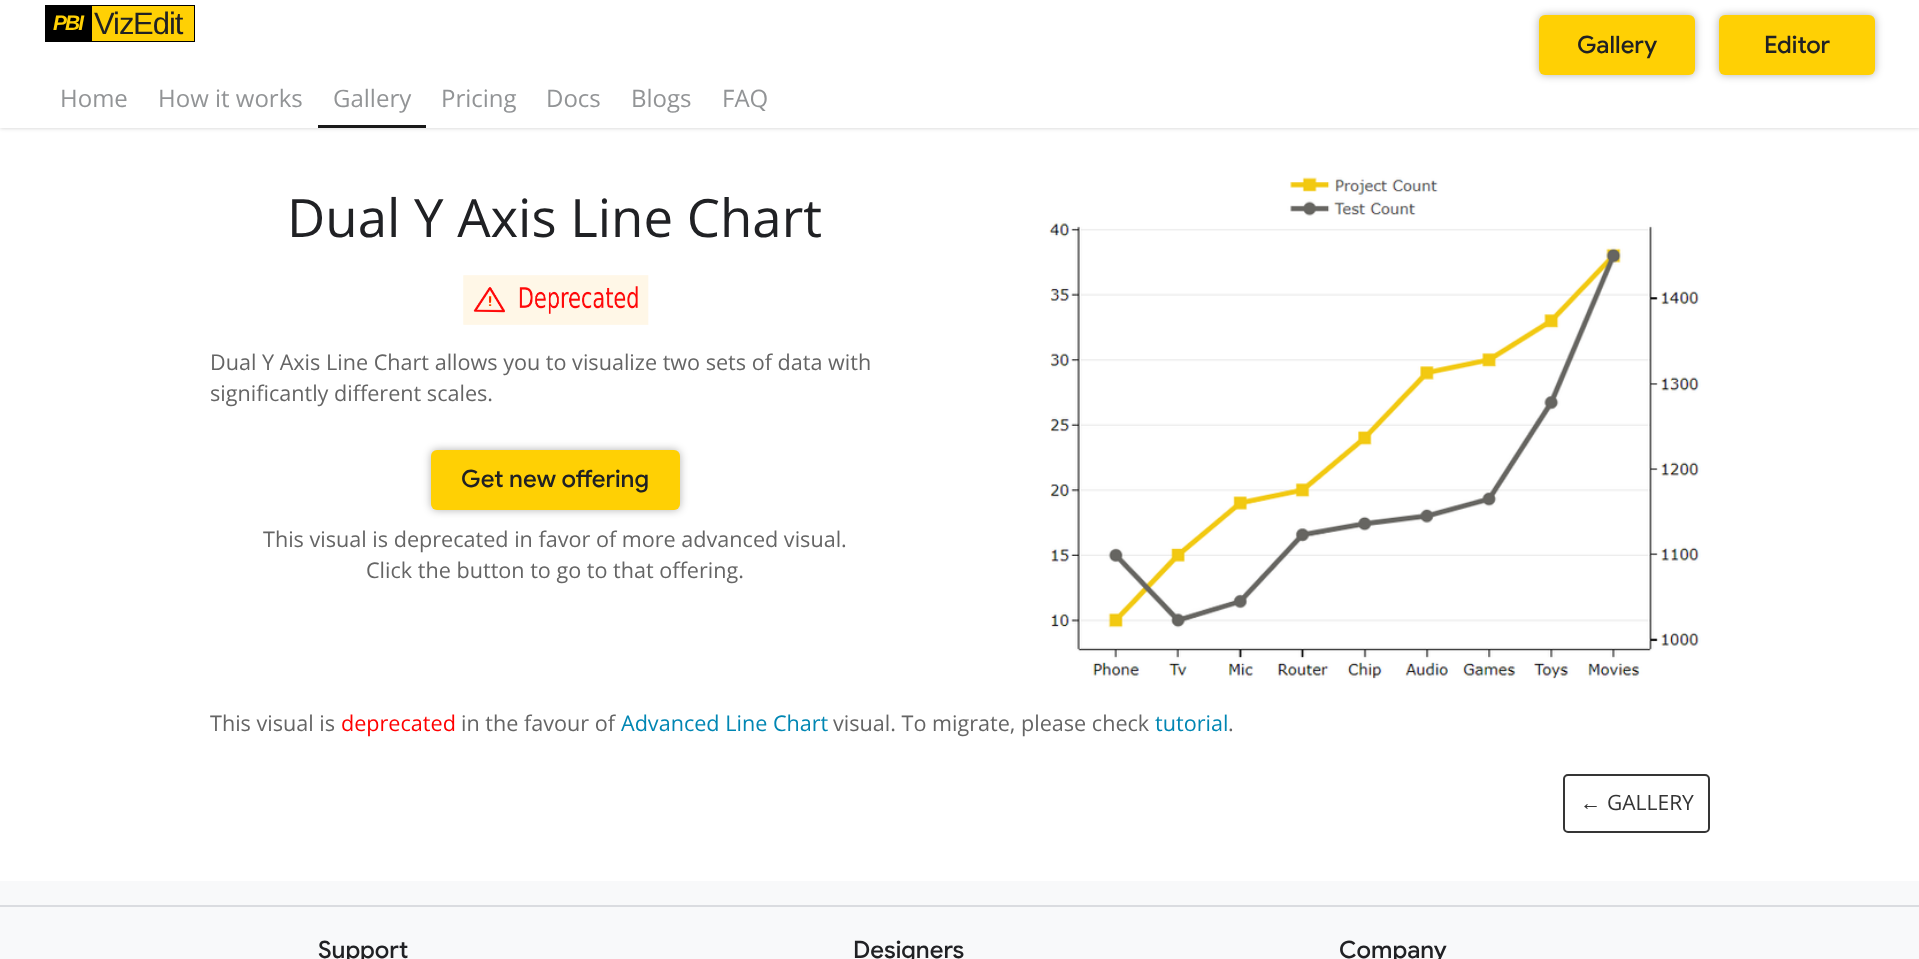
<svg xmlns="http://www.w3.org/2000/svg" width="1919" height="959">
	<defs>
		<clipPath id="clip1"><rect x="45" y="5" width="150" height="37" /></clipPath>
	</defs>
	<rect width="100%" height="100%" fill="#FFFFFF" />
	<rect x="0" y="0" width="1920" height="128" fill="#000000" fill-opacity="0.2" filter="blur(2px)" />
	<rect x="0" y="0" width="1919" height="128" fill="#FFFFFF" />
	<rect x="45" y="5" width="44" height="37" fill="#000000" />
	<text x="53" y="30" transform="rotate(-0.2 53 30)" font-family="Liberation Sans" font-size="21" font-weight="700" font-style="italic" letter-spacing="-2" fill="#FFD004">PBI</text>
	<rect x="92" y="6" width="102" height="35" fill="#FFD004" />
	<g clip-path="url(#clip1)">
		<rect x="90.5" y="4.5" width="105" height="38" fill="none" stroke="#000000" stroke-width="3" />
	</g>
	<g font-family="Liberation Sans" font-size="31" letter-spacing="-1" fill="#202124">
		<text x="94" y="34">Viz</text>
		<text x="133" y="34">Edit</text>
	</g>
	<rect x="1539" y="15" width="156" height="60" rx="6" fill="#000000" fill-opacity="0.3" filter="blur(4px)" />
	<rect x="1539" y="15" width="156" height="60" rx="6" fill="#FFD004" />
	<text x="1577" y="53" font-family="Google Sans" font-size="24" font-weight="500" fill="#202124">Gallery</text>
	<rect x="1719" y="15" width="156" height="60" rx="6" fill="#000000" fill-opacity="0.3" filter="blur(4px)" />
	<rect x="1719" y="15" width="156" height="60" rx="6" fill="#FFD004" />
	<text x="1764" y="53" font-family="Google Sans" font-size="24" font-weight="500" fill="#202124">Editor</text>
	<g font-family="Open Sans" font-size="24" fill="#929496">
		<text x="60" y="107">Home</text>
		<text x="158" y="107">How it works</text>
	</g>
	<rect x="318" y="125" width="108" height="3" fill="#191919" />
	<g font-family="Open Sans" font-size="24" fill="#929496">
		<text x="333" y="107">Gallery</text>
		<text x="441" y="107">Pricing</text>
		<text x="546" y="107">Docs</text>
		<text x="631" y="107">Blogs</text>
		<text x="722" y="107">FAQ</text>
	</g>
	<text x="287" y="237" font-family="Open Sans" font-size="52.75" fill="#202124">Dual Y Axis Line Chart</text>
	<image x="463" y="275" width="186" height="50" href="assets/img1.png" />
	<g font-family="Open Sans" font-size="21.6" fill="#656565">
		<text x="210" y="370">Dual Y Axis Line Chart allows you to visualize two sets of data with</text>
		<text x="210" y="401">significantly different scales.</text>
	</g>
	<rect x="431" y="450" width="249" height="60" rx="6" fill="#000000" fill-opacity="0.3" filter="blur(4px)" />
	<rect x="431" y="450" width="249" height="60" rx="6" fill="#FFD004" />
	<text x="461" y="487" font-family="Google Sans" font-size="24" font-weight="500" fill="#202124">Get new offering</text>
	<g font-family="Open Sans" font-size="21.6" fill="#656565">
		<text x="263" y="547">This visual is deprecated in favor of more advanced visual.</text>
		<text x="366" y="578">Click the button to go to that offering.</text>
	</g>
	<image x="1049" y="177" width="652" height="502" href="assets/img2.png" />
	<text x="210" y="731" font-family="Open Sans" font-size="21.6" fill="#656565">This visual is</text>
	<text x="341" y="731" font-family="Open Sans" font-size="21.6" fill="#FF0000">deprecated</text>
	<text x="461" y="731" font-family="Open Sans" font-size="21.6" fill="#656565">in the favour of</text>
	<text x="621" y="731" font-family="Open Sans" font-size="21.6" fill="#0086B3">Advanced Line Chart</text>
	<text x="833" y="731" font-family="Open Sans" font-size="21.6" fill="#656565">visual. To migrate, please check</text>
	<text x="1155" y="731" font-family="Open Sans" font-size="21.6" fill="#0086B3">tutorial</text>
	<text x="1228" y="731" font-family="Open Sans" font-size="21.6" fill="#656565">.</text>
	<rect x="1564" y="775" width="145" height="57" rx="4" fill="none" stroke="#353535" stroke-width="2" />
	<text x="1580" y="810" font-family="Liberation Sans" font-size="21" fill="#353535">←</text>
	<text x="1607" y="810" font-family="Open Sans" font-size="21" fill="#353535">GALLERY</text>
	<rect x="0" y="881" width="1919" height="78" fill="#F8F9FA" />
	<rect x="0" y="905" width="1919" height="2" fill="#DADCE0" />
	<g font-family="Google Sans" font-size="24" font-weight="500" fill="#202124">
		<text x="318" y="958">Support</text>
		<text x="853" y="958">Designers</text>
		<text x="1339" y="958">Company</text>
	</g>
</svg>
